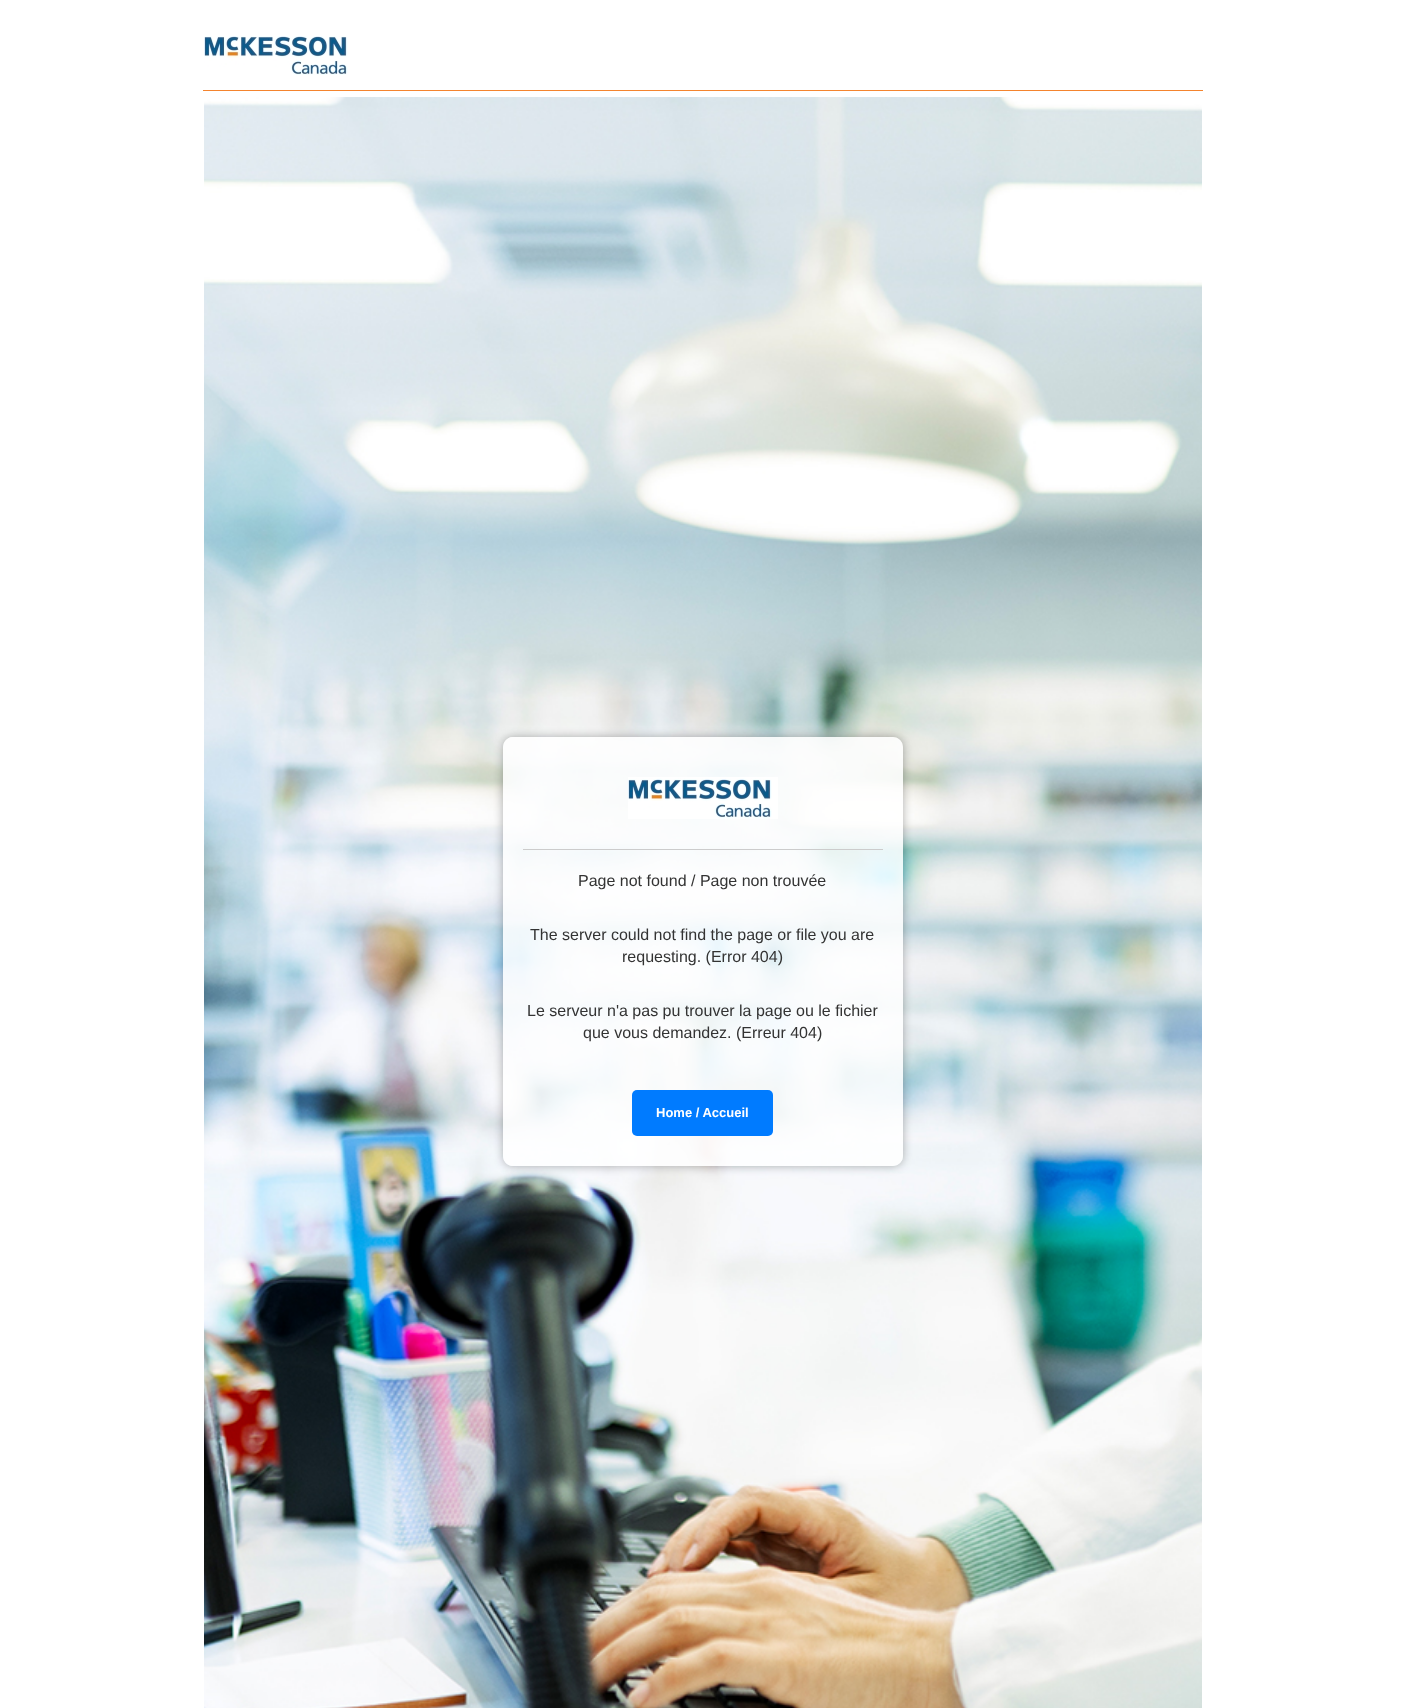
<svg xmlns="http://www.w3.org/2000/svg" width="1405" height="1708">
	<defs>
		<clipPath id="clip1"><path d="M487 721H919V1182H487ZM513 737H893C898.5 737 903 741.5 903 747V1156C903 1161.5 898.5 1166 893 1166H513C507.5 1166 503 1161.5 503 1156V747C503 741.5 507.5 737 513 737Z" clip-rule="evenodd" /></clipPath>
	</defs>
	<rect width="100%" height="100%" fill="#FFFFFF" />
	<rect x="203" y="90" width="1000" height="1" fill="#F4842E" />
	<image x="204" y="36" width="144" height="39" href="assets/img1.png" />
	<image x="204" y="97" width="998" height="1611" href="assets/img2.png" />
	<g clip-path="url(#clip1)">
		<rect x="503" y="737" width="400" height="429" rx="10" fill="#000000" fill-opacity="0.3" filter="blur(5px)" />
	</g>
	<rect x="503" y="737" width="400" height="429" rx="10" fill="#FFFFFF" fill-opacity="0.85" />
	<image x="628" y="777" width="150" height="42" href="assets/img3.png" />
	<rect x="523" y="849" width="360" height="1" fill="#CCCCCC" />
	<g font-family="Liberation Sans" font-size="16" fill="#333333">
		<text x="578" y="886">Page not found / Page non trouvée</text>
		<text x="530" y="940">The server could not find the page or file you are</text>
		<text x="622" y="962">requesting. (Error 404)</text>
		<text x="527" y="1016">Le serveur n'a pas pu trouver la page ou le fichier</text>
		<text x="583" y="1038">que vous demandez. (Erreur 404)</text>
	</g>
	<rect x="632" y="1090" width="141" height="46" rx="5" fill="#007BFF" />
	<text x="656" y="1117" font-family="Liberation Sans" font-size="13" font-weight="700" fill="#FFFFFF">Home / Accueil</text>
</svg>
